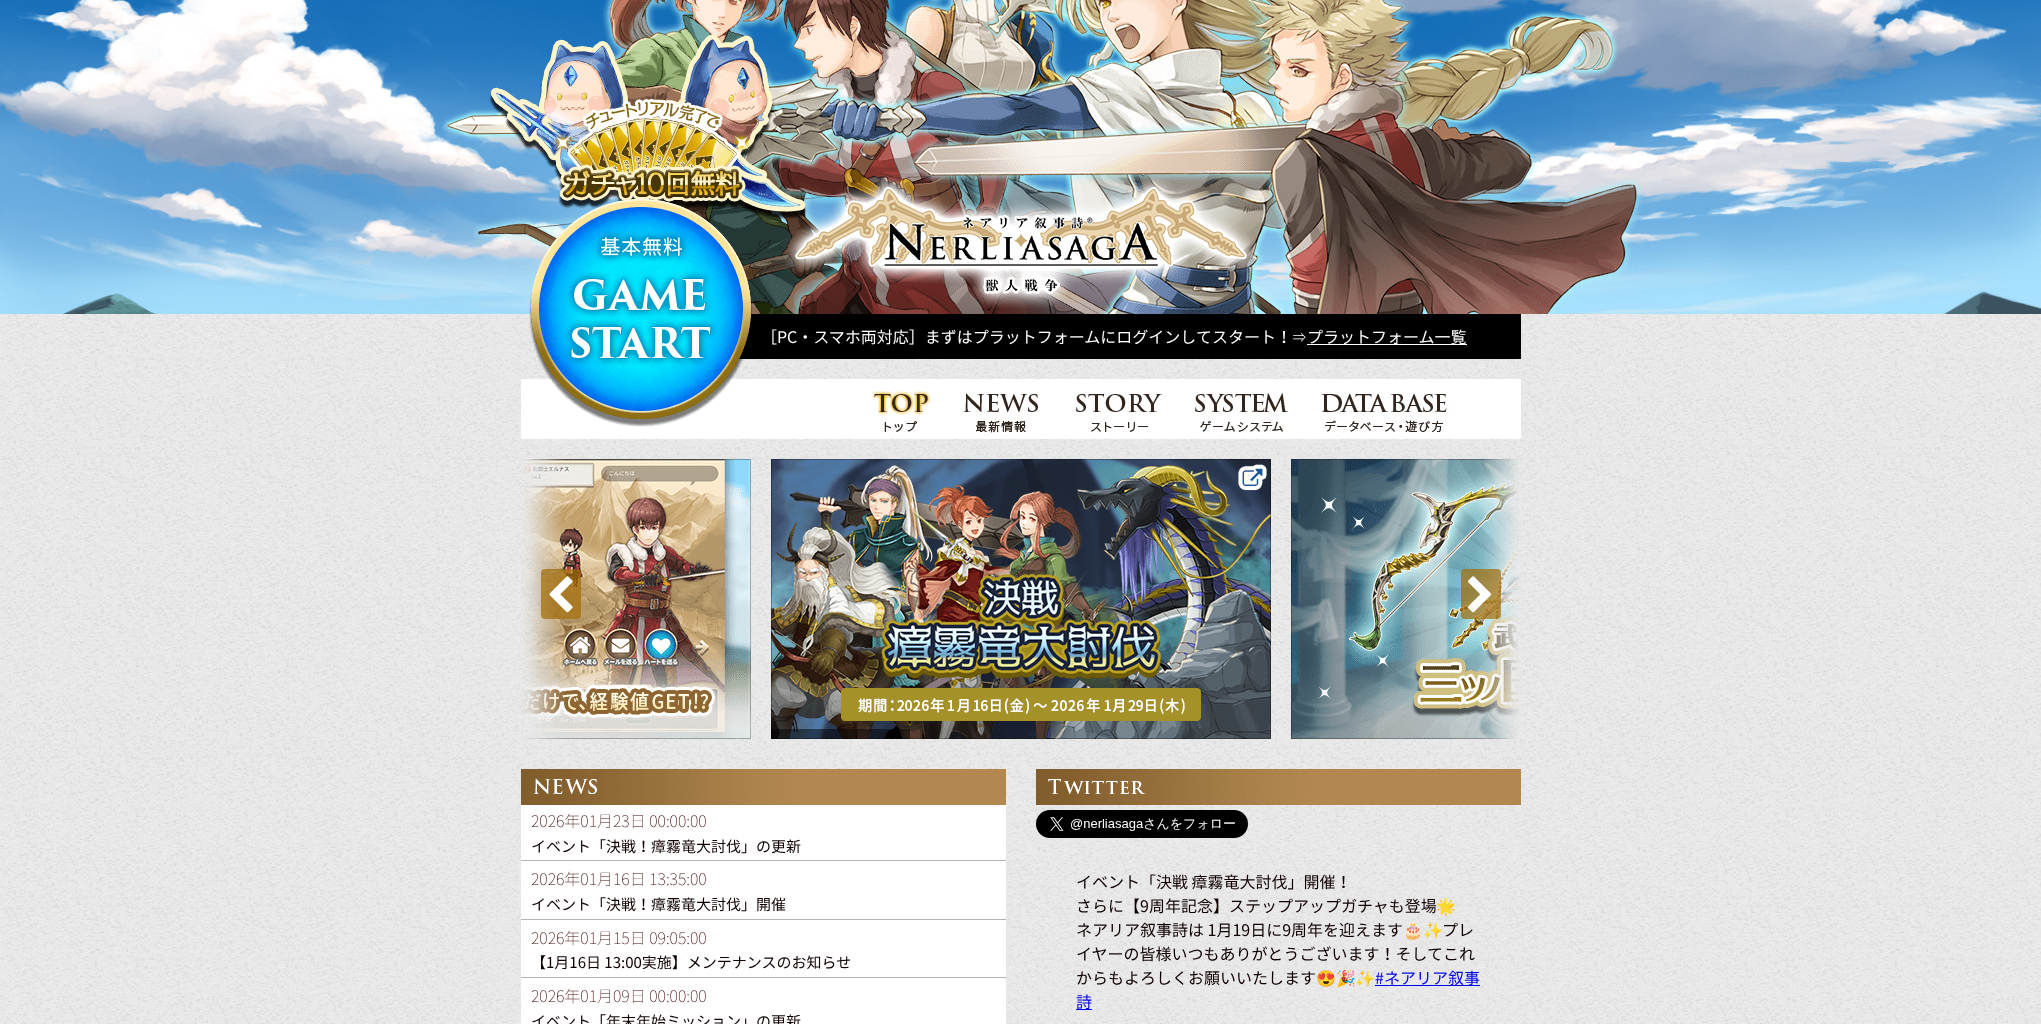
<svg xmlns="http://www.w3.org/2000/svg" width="2041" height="1024">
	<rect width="100%" height="100%" fill="#FFFFFF" />
	<image x="0" y="314" width="2041" height="710" href="assets/img1.png" />
	<image x="0" y="0" width="2041" height="314" href="assets/img2.png" />
	<image x="473" y="0" width="431" height="314" href="assets/img4.png" />
	<image x="860" y="0" width="425" height="314" href="assets/img6.png" />
	<image x="764" y="0" width="419" height="314" href="assets/img5.png" />
	<image x="962" y="0" width="379" height="71" href="assets/img8.png" />
	<image x="442" y="0" width="1177" height="314" href="assets/img3.png" />
	<image x="908" y="0" width="735" height="314" href="assets/img7.png" />
	<image x="489" y="34" width="318" height="186" href="assets/img10.png" />
	<image x="783" y="174" width="475" height="134" href="assets/img9.png" />
	<rect x="739" y="314" width="782" height="45" fill="#000000" />
	<rect x="521" y="379" width="1000" height="60" fill="#FFFFFF" />
	<image x="529" y="199" width="223" height="228" href="assets/img11.png" />
	<image x="529" y="199" width="223" height="228" href="assets/img12.png" />
	<text x="761" y="343" font-family="Noto Sans JP" font-size="16" fill="#FFFFFF">［PC・スマホ両対応］まずはプラットフォームにログインしてスタート！</text>
	<text x="1291" y="343" font-family="WenQuanYi Zen Hei" font-size="16" font-weight="500" fill="#FFFFFF">⇒</text>
	<rect x="1307" y="344" width="160" height="1" fill="#FFFFFF" />
	<text x="1307" y="343" font-family="Noto Sans JP" font-size="16" fill="#FFFFFF">プラットフォーム一覧</text>
	<image x="871" y="391" width="60" height="41" href="assets/img13.png" />
	<image x="963" y="393" width="75" height="40" href="assets/img14.png" />
	<image x="1076" y="394" width="86" height="38" href="assets/img15.png" />
	<image x="1195" y="393" width="93" height="39" href="assets/img16.png" />
	<image x="1321" y="393" width="126" height="39" href="assets/img17.png" />
	<image x="521" y="459" width="230" height="280" href="assets/img18.png" />
	<image x="771" y="459" width="500" height="280" href="assets/img19.png" />
	<image x="1291" y="459" width="230" height="280" href="assets/img20.png" />
	<image x="521" y="459" width="230" height="280" href="assets/img21.png" />
	<image x="1291" y="459" width="230" height="280" href="assets/img22.png" />
	<rect x="541" y="569" width="40" height="50" rx="4" fill="#A36C07" fill-opacity="0.7" />
	<image x="549" y="576" width="24" height="37" href="assets/img23.png" />
	<rect x="1461" y="569" width="40" height="50" rx="4" fill="#A36C07" fill-opacity="0.7" />
	<image x="1468" y="576" width="24" height="37" href="assets/img24.png" />
	<rect x="771" y="729" width="139" height="10" fill="#000000" fill-opacity="0.5" />
	<rect x="521" y="805" width="485" height="219" fill="#FFFFFF" />
	<image x="521" y="769" width="485" height="36" href="assets/img25.png" />
	<text x="531" y="827" font-family="Noto Sans JP" font-size="16" font-weight="100" fill="#400000">2026年01月23日 00:00:00</text>
	<rect x="521" y="860" width="485" height="1" fill="#B3B3B3" />
	<text x="531" y="852" font-family="Noto Sans JP" font-size="15" fill="#100000">イベント「決戦！瘴霧竜大討伐」の更新</text>
	<text x="531" y="885" font-family="Noto Sans JP" font-size="16" font-weight="100" fill="#400000">2026年01月16日 13:35:00</text>
	<rect x="521" y="919" width="485" height="1" fill="#B3B3B3" />
	<text x="531" y="910" font-family="Noto Sans JP" font-size="15" fill="#100000">イベント「決戦！瘴霧竜大討伐」開催</text>
	<text x="531" y="944" font-family="Noto Sans JP" font-size="16" font-weight="100" fill="#400000">2026年01月15日 09:05:00</text>
	<rect x="521" y="977" width="485" height="1" fill="#B3B3B3" />
	<text x="531" y="968" font-family="Noto Sans JP" font-size="15" fill="#100000">【1月16日 13:00実施】メンテナンスのお知らせ</text>
	<text x="531" y="1002" font-family="Noto Sans JP" font-size="16" font-weight="100" fill="#400000">2026年01月09日 00:00:00</text>
	<text x="531" y="1027" font-family="Noto Sans JP" font-size="15" fill="#100000">イベント「年末年始ミッション」の更新</text>
	<image x="1036" y="769" width="485" height="36" href="assets/img26.png" />
	<image x="1036" y="810" width="212" height="28" href="assets/img27.png" />
	<g font-family="Noto Sans JP" font-size="16" fill="#100000">
		<text x="1076" y="888">イベント「決戦 瘴霧竜大討伐」開催！</text>
		<text x="1076" y="912">さらに【9周年記念】ステップアップガチャも登場</text>
	</g>
	<text x="1436" y="912" font-family="Noto Color Emoji" font-size="16" fill="#100000">🌟</text>
	<text x="1076" y="936" font-family="Noto Sans JP" font-size="16" fill="#100000">ネアリア叙事詩は 1月19日に9周年を迎えます</text>
	<text x="1403" y="936" font-family="Noto Color Emoji" font-size="16" fill="#100000">🎂✨</text>
	<g font-family="Noto Sans JP" font-size="16" fill="#100000">
		<text x="1442" y="936">プレ</text>
		<text x="1076" y="960">イヤーの皆様いつもありがとうございます！そしてこれ</text>
		<text x="1076" y="984">からもよろしくお願いいたします</text>
	</g>
	<text x="1316" y="984" font-family="Noto Color Emoji" font-size="16" fill="#100000">😍🎉✨</text>
	<rect x="1375" y="985" width="105" height="1" fill="#0000EE" />
	<text x="1375" y="984" font-family="Noto Sans JP" font-size="16" fill="#0000EE">#ネアリア叙事</text>
	<rect x="1076" y="1009" width="16" height="1" fill="#0000EE" />
	<text x="1076" y="1008" font-family="Noto Sans JP" font-size="16" fill="#0000EE">詩</text>
</svg>
